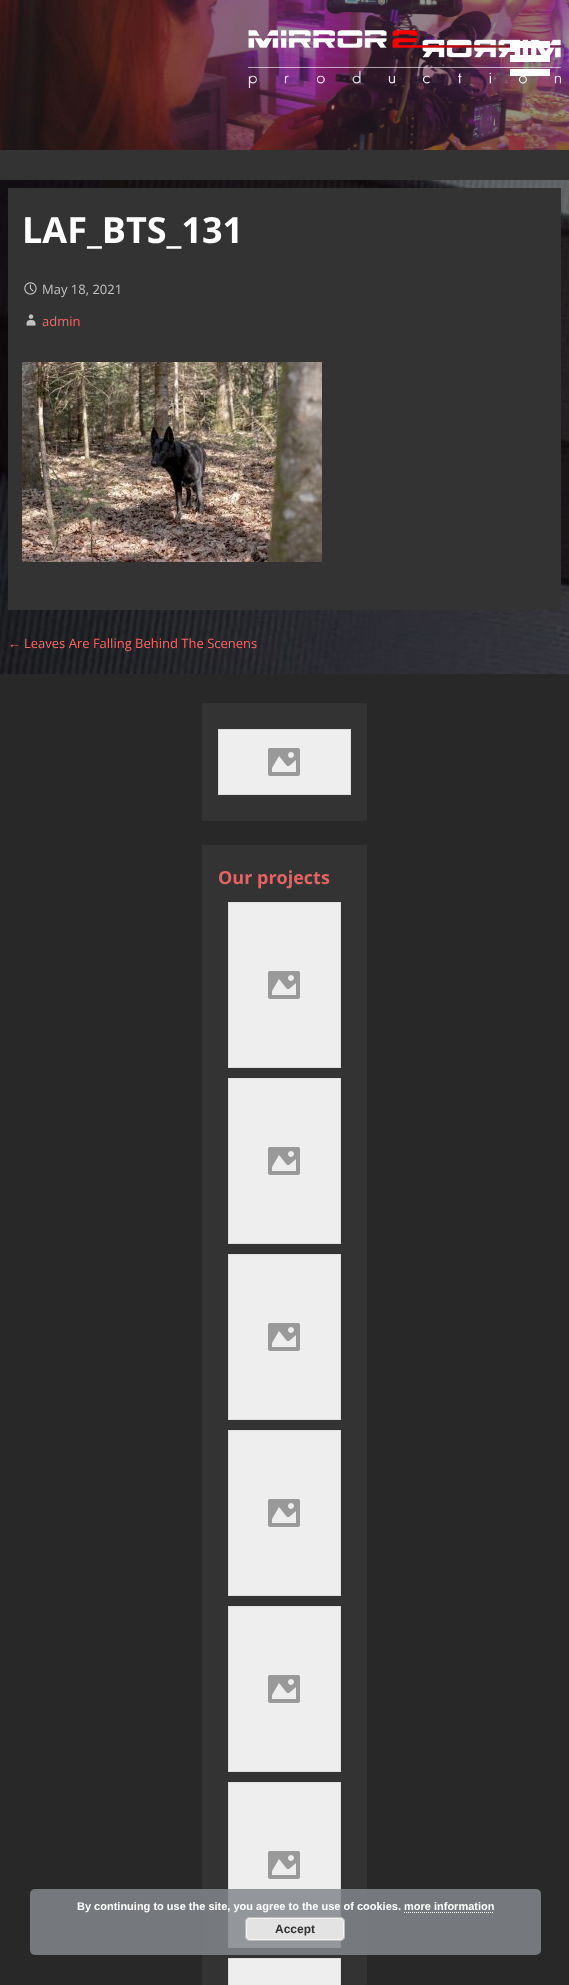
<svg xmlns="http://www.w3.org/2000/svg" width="569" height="1985">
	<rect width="100%" height="100%" fill="#FFFFFF" />
	<image x="0" y="180" width="569" height="494" href="assets/img1.png" />
	<image x="0" y="0" width="569" height="150" href="assets/img2.png" />
	<image x="248" y="30" width="313" height="58" href="assets/img3.png" />
	<rect x="0" y="150" width="569" height="30" fill="#333333" />
	<rect x="510" y="41" width="40" height="7" fill="#FFFFFF" />
	<rect x="510" y="55" width="40" height="7" fill="#FFFFFF" />
	<rect x="510" y="69" width="40" height="7" fill="#FFFFFF" />
	<rect x="8" y="188" width="553" height="422" fill="#333333" />
	<text x="22" y="243" font-family="Open Sans" font-size="36" font-weight="700" fill="#FFFFFF">LAF_BTS_131</text>
	<image x="24" y="282" width="13" height="13" href="assets/img4.png" />
	<text x="42" y="294" font-family="Open Sans" font-size="13" fill="#C1C1C1">May 18, 2021</text>
	<image x="26" y="314" width="10" height="12" href="assets/img5.png" />
	<text x="42" y="326" font-family="Open Sans" font-size="13" fill="#FF6663">admin</text>
	<image x="22" y="362" width="300" height="200" href="assets/img6.png" />
	<text x="8" y="648" font-family="Liberation Sans" font-size="13" fill="#FF6663">←</text>
	<text x="24" y="648" font-family="Open Sans" font-size="13" fill="#FF6663">Leaves Are Falling Behind The Scenens</text>
	<rect x="0" y="674" width="569" height="1311" fill="#282828" />
	<rect x="202" y="703" width="165" height="118" fill="#333333" />
	<rect x="218.5" y="729.5" width="132" height="65" fill="#EEEEEE" stroke="#DDDDDD" />
	<image x="268" y="748" width="32" height="28" href="assets/img7.png" />
	<rect x="202" y="845" width="165" height="1140" fill="#333333" />
	<text x="218" y="884" font-family="Open Sans" font-size="18" font-weight="700" fill="#E46464">Our projects</text>
	<rect x="228.5" y="902.5" width="112" height="165" fill="#EEEEEE" stroke="#DDDDDD" />
	<image x="268" y="971" width="32" height="28" href="assets/img7.png" />
	<rect x="228.5" y="1078.5" width="112" height="165" fill="#EEEEEE" stroke="#DDDDDD" />
	<image x="268" y="1147" width="32" height="28" href="assets/img7.png" />
	<rect x="228.5" y="1254.5" width="112" height="165" fill="#EEEEEE" stroke="#DDDDDD" />
	<image x="268" y="1323" width="32" height="28" href="assets/img7.png" />
	<rect x="228.5" y="1430.5" width="112" height="165" fill="#EEEEEE" stroke="#DDDDDD" />
	<image x="268" y="1499" width="32" height="28" href="assets/img7.png" />
	<rect x="228.5" y="1606.5" width="112" height="165" fill="#EEEEEE" stroke="#DDDDDD" />
	<image x="268" y="1675" width="32" height="28" href="assets/img7.png" />
	<rect x="228.5" y="1782.5" width="112" height="165" fill="#EEEEEE" stroke="#DDDDDD" />
	<image x="268" y="1851" width="32" height="28" href="assets/img7.png" />
	<rect x="228.5" y="1958.5" width="112" height="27" fill="#EEEEEE" stroke="#DDDDDD" />
	<rect x="30" y="1889" width="511" height="66" rx="5" fill="#82878C" fill-opacity="0.85" />
	<text x="77" y="1910" font-family="Liberation Sans" font-size="11" font-weight="700" fill="#FFFFFF">By continuing to use the site, you agree to the use of cookies. more information</text>
	<path d="M404 1912.5H494" fill="none" stroke="#FFFFFF" stroke-dasharray="1 1" />
	<rect x="245" y="1917" width="100" height="24" rx="5" fill="#E3E3E3" />
	<rect x="246.5" y="1918.5" width="97" height="21" rx="3.5" fill="none" stroke="#F6F6F6" />
	<rect x="245.5" y="1917.5" width="99" height="23" rx="4.5" fill="none" stroke="#BBBBBB" />
	<text x="275" y="1933" font-family="Liberation Sans" font-size="12" font-weight="700" fill="#333333">Accept</text>
</svg>
